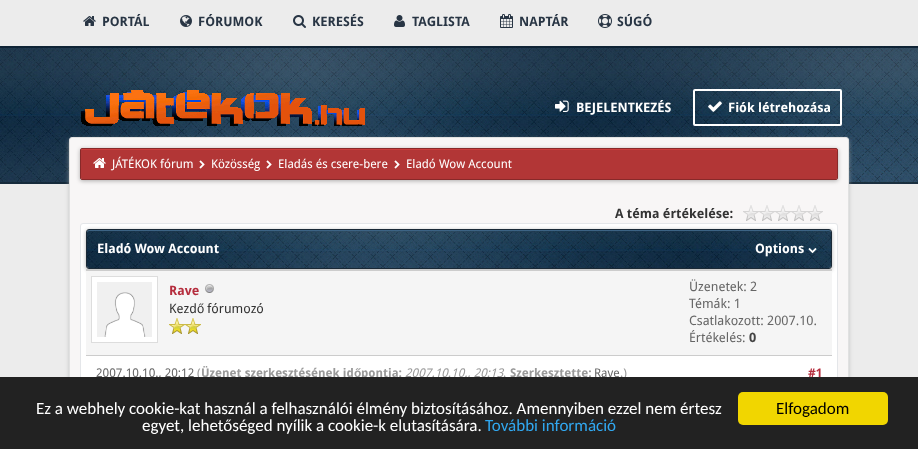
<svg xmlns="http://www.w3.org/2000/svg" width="918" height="449">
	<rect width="100%" height="100%" fill="#ECECEC" />
	<image x="0" y="46" width="918" height="138" href="assets/img1.png" />
	<image x="83" y="16" width="13" height="10" href="assets/img2.png" />
	<text x="102" y="26" font-family="Droid Sans" font-size="13" font-weight="700" fill="#283544">PORTÁL</text>
	<image x="180" y="15" width="12" height="12" href="assets/img3.png" />
	<text x="198" y="26" font-family="Droid Sans" font-size="13" font-weight="700" fill="#283544">FÓRUMOK</text>
	<image x="293" y="15" width="13" height="13" href="assets/img4.png" />
	<text x="312" y="26" font-family="Droid Sans" font-size="13" font-weight="700" fill="#283544">KERESÉS</text>
	<image x="394" y="15" width="11" height="12" href="assets/img5.png" />
	<text x="412" y="26" font-family="Droid Sans" font-size="13" font-weight="700" fill="#283544">TAGLISTA</text>
	<image x="500" y="14" width="13" height="14" href="assets/img6.png" />
	<text x="519" y="26" font-family="Droid Sans" font-size="13" font-weight="700" fill="#283544">NAPTÁR</text>
	<image x="598" y="14" width="14" height="14" href="assets/img7.png" />
	<text x="617" y="26" font-family="Droid Sans" font-size="13" font-weight="700" fill="#283544">SÚGÓ</text>
	<image x="81" y="90" width="284" height="36" href="assets/img8.png" />
	<image x="555" y="100" width="14" height="12" href="assets/img9.png" />
	<text x="576" y="112" font-family="Droid Sans" font-size="13" font-weight="700" fill="#FFFFFF">BEJELENTKEZÉS</text>
	<rect x="694" y="90" width="147" height="35" rx="1" fill="none" stroke="#FFFFFF" stroke-width="2" />
	<image x="708" y="101" width="14" height="11" href="assets/img10.png" />
	<text x="728" y="112" font-family="Droid Sans" font-size="13" font-weight="700" fill="#FFFFFF">Fiók létrehozása</text>
	<rect x="70" y="140" width="778" height="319" rx="2" fill="#ADAEAF" filter="blur(2.5px)" />
	<rect x="69.5" y="137.5" width="779" height="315" rx="2.5" fill="#F8F6F6" stroke="#E1E1E1" />
	<rect x="80" y="149" width="758" height="32" rx="2" fill="#000000" fill-opacity="0.3" filter="blur(2px)" />
	<rect x="81" y="149" width="756" height="30" rx="1" fill="#B23636" />
	<path d="M836 150L837 152V149H82L81 150ZM837 177V179Z" fill="#CC3D3D" fill-rule="evenodd" />
	<rect x="80.5" y="148.5" width="757" height="31" rx="1.5" fill="none" stroke="#882929" />
	<image x="93" y="158" width="13" height="10" href="assets/img11.png" />
	<text x="112" y="168" font-family="Droid Sans" font-size="12" fill="#FFFFFF">JÁTÉKOK fórum</text>
	<image x="199" y="160" width="6" height="9" href="assets/img12.png" />
	<text x="211" y="168" font-family="Droid Sans" font-size="12" fill="#FFFFFF">Közösség</text>
	<image x="266" y="160" width="6" height="9" href="assets/img12.png" />
	<text x="278" y="168" font-family="Droid Sans" font-size="12" fill="#FFFFFF">Eladás és csere-bere</text>
	<image x="394" y="160" width="6" height="9" href="assets/img12.png" />
	<text x="406" y="168" font-family="Droid Sans" font-size="12" fill="#FFFFFF">Eladó Wow Account</text>
	<text x="615" y="218" font-family="Droid Sans" font-size="13" font-weight="700" fill="#333333">A téma értékelése:</text>
	<image x="743" y="205" width="80" height="16" href="assets/img13.png" />
	<rect x="80.5" y="223.5" width="757" height="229" rx="2.5" fill="#FFFFFF" stroke="#E4E6E9" />
	<rect x="86" y="230" width="746" height="40" rx="3" fill="#000000" fill-opacity="0.3" filter="blur(2px)" />
	<image x="87" y="230" width="744" height="38" href="assets/img14.png" />
	<path d="M89 231H829C830 231 831 232 831 233C831 232 831 230 829 230H89C87 230 87 232 87 233C87 232 88 231 89 231Z" fill="#3D6485" />
	<rect x="86.5" y="229.5" width="745" height="39" rx="2.5" fill="none" stroke="#1A2936" />
	<g font-family="Droid Sans" font-size="13" font-weight="700" fill="#FFFFFF">
		<text x="97" y="253">Eladó Wow Account</text>
		<text x="755" y="253">Options</text>
	</g>
	<image x="808" y="248" width="9" height="6" href="assets/img15.png" />
	<rect x="86" y="271" width="746" height="84" fill="#F5F5F5" />
	<rect x="86" y="269" width="746" height="2" fill="#CCCCCC" />
	<rect x="86" y="355" width="746" height="1" fill="#CCCCCC" />
	<rect x="91.5" y="276.5" width="66" height="66" fill="#FFFFFF" stroke="#DDDDDD" />
	<image x="97" y="282" width="55" height="55" href="assets/img16.png" />
	<text x="169" y="295" font-family="Droid Sans" font-size="13" font-weight="700" fill="#B52D3D">Rave</text>
	<image x="205" y="284" width="9" height="9" href="assets/img17.png" />
	<text x="169" y="313" font-family="Droid Sans" font-size="13" fill="#333333">Kezd</text>
	<text x="197" y="313" font-family="Liberation Sans" font-size="13" fill="#333333">ő</text>
	<text x="207" y="313" font-family="Droid Sans" font-size="13" fill="#333333">fórumozó</text>
	<image x="169" y="318" width="16" height="16" href="assets/img18.png" />
	<image x="185" y="318" width="16" height="16" href="assets/img18.png" />
	<g font-family="Droid Sans" font-size="13" fill="#666666">
		<text x="689" y="291">Üzenetek: 2</text>
		<text x="689" y="308">Témák: 1</text>
		<text x="689" y="325">Csatlakozott: 2007.10.</text>
		<text x="689" y="342">Értékelés:</text>
	</g>
	<text x="749" y="342" font-family="Droid Sans" font-size="13" font-weight="700" fill="#444444">0</text>
	<text x="96" y="377" font-family="Droid Sans" font-size="12" fill="#666666">2007.10.10., 20:12</text>
	<text x="197" y="377" font-family="Droid Sans" font-size="12" fill="#999999">(</text>
	<text x="201" y="377" font-family="Droid Sans" font-size="12" font-weight="700" fill="#999999">Üzenet szerkesztésének id</text>
	<text x="354" y="377" font-family="Liberation Sans" font-size="12" font-weight="700" fill="#999999">ő</text>
	<text x="361" y="377" font-family="Droid Sans" font-size="12" font-weight="700" fill="#999999">pontja:</text>
	<text x="405" y="377" font-family="Droid Sans" font-size="12" font-style="italic" fill="#999999">2007.10.10., 20:13</text>
	<text x="503" y="377" font-family="Droid Sans" font-size="12" fill="#999999">.</text>
	<text x="510" y="377" font-family="Droid Sans" font-size="12" font-weight="700" fill="#999999">Szerkesztette:</text>
	<text x="594" y="377" font-family="Droid Sans" font-size="12" fill="#666666">Rave</text>
	<text x="620" y="377" font-family="Droid Sans" font-size="12" fill="#999999">.)</text>
	<text x="808" y="377" font-family="Droid Sans" font-size="12" font-weight="700" fill="#B52D3D">#1</text>
	<rect x="0" y="377" width="918" height="72" fill="#222222" />
	<g font-family="Carlito" font-size="17" fill="#FFFFFF">
		<text x="36" y="414">Ez a webhely cookie-kat használ a felhasználói élmény biztosításához. Amennyiben ezzel nem értesz</text>
		<text x="142" y="431">egyet, lehetőséged nyílik a cookie-k elutasítására.</text>
	</g>
	<text x="485" y="431" font-family="Carlito" font-size="17" fill="#31A8F0">További információ</text>
	<rect x="738" y="392" width="150" height="33" rx="5" fill="#F1D600" />
	<text x="776" y="414" font-family="Carlito" font-size="17" fill="#000000">Elfogadom</text>
</svg>
